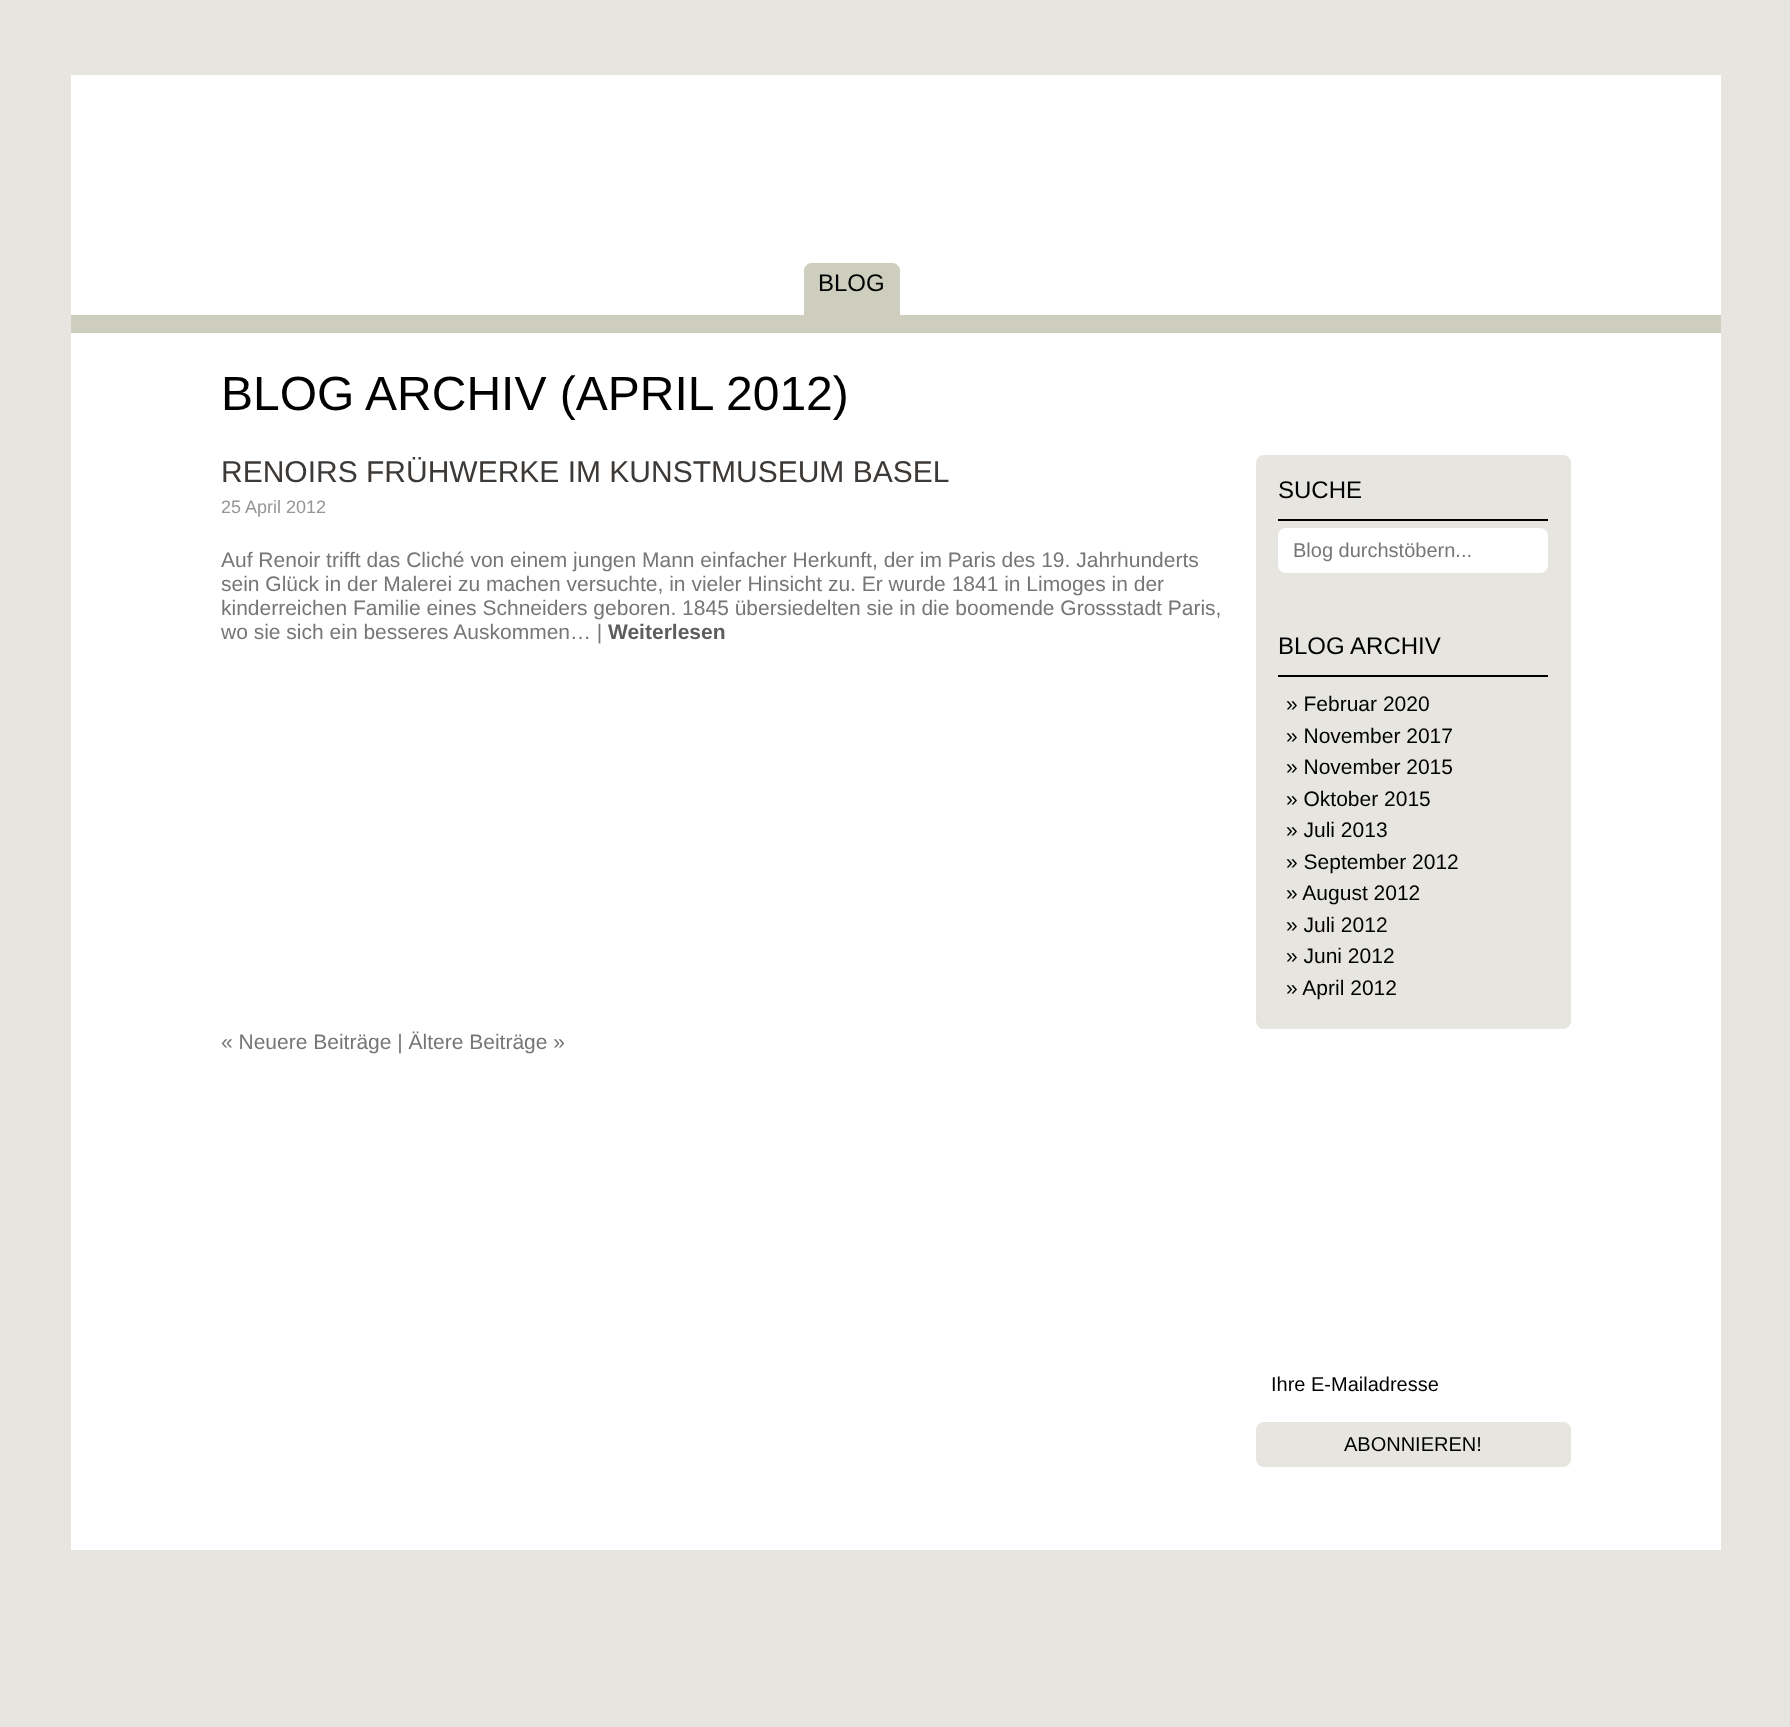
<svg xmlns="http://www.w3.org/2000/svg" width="1790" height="1727">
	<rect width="100%" height="100%" fill="#E6E5E0" />
	<rect x="71" y="75" width="1650" height="1475" fill="#FFFFFF" />
	<rect x="71" y="315" width="1650" height="18" fill="#CDCEBE" />
	<path d="M812 263H892C896.5 263 900 266.5 900 271V315H804V271C804 266.5 807.5 263 812 263Z" fill="#CDCEBE" />
	<text x="818" y="291" font-family="Liberation Sans" font-size="24" fill="#000000">BLOG</text>
	<text x="221" y="410" font-family="Liberation Sans" font-size="48" fill="#000000">BLOG ARCHIV (APRIL 2012)</text>
	<text x="221" y="482" font-family="Liberation Sans" font-size="30" fill="#3D3936">RENOIRS FRÜHWERKE IM KUNSTMUSEUM BASEL</text>
	<text x="221" y="513" font-family="Liberation Sans" font-size="18" fill="#969696">25 April 2012</text>
	<g font-family="Liberation Sans" font-size="21" fill="#767676">
		<text x="221" y="567">Auf Renoir trifft das Cliché von einem jungen Mann einfacher Herkunft, der im Paris des 19. Jahrhunderts</text>
		<text x="221" y="591">sein Glück in der Malerei zu machen versuchte, in vieler Hinsicht zu. Er wurde 1841 in Limoges in der</text>
		<text x="221" y="615">kinderreichen Familie eines Schneiders geboren. 1845 übersiedelten sie in die boomende Grossstadt Paris,</text>
		<text x="221" y="639">wo sie sich ein besseres Auskommen… |</text>
	</g>
	<text x="608" y="639" font-family="Liberation Sans" font-size="21" font-weight="700" fill="#5D5D5D">Weiterlesen</text>
	<text x="221" y="1049" font-family="Liberation Sans" font-size="21" fill="#767676">« Neuere Beiträge | Ältere Beiträge »</text>
	<rect x="1256" y="455" width="315" height="574" rx="8" fill="#E6E5E0" />
	<rect x="1278" y="519" width="270" height="2" fill="#000000" />
	<text x="1278" y="498" font-family="Liberation Sans" font-size="24" fill="#000000">SUCHE</text>
	<rect x="1278" y="528" width="270" height="45" rx="8" fill="#FFFFFF" />
	<text x="1293" y="557" font-family="Liberation Sans" font-size="20" fill="#767676">Blog durchstöbern...</text>
	<rect x="1278" y="675" width="270" height="2" fill="#000000" />
	<text x="1278" y="654" font-family="Liberation Sans" font-size="24" fill="#000000">BLOG ARCHIV</text>
	<g font-family="Liberation Sans" font-size="21" fill="#000000">
		<text x="1286" y="711">» Februar 2020</text>
		<text x="1286" y="743">» November 2017</text>
		<text x="1286" y="774">» November 2015</text>
		<text x="1286" y="806">» Oktober 2015</text>
		<text x="1286" y="837">» Juli 2013</text>
		<text x="1286" y="869">» September 2012</text>
		<text x="1286" y="900">» August 2012</text>
		<text x="1286" y="932">» Juli 2012</text>
		<text x="1286" y="963">» Juni 2012</text>
		<text x="1286" y="995">» April 2012</text>
	</g>
	<text x="1271" y="1391" font-family="Liberation Sans" font-size="20" fill="#000000">Ihre E-Mailadresse</text>
	<rect x="1256" y="1422" width="315" height="45" rx="8" fill="#E6E5E0" />
	<text x="1344" y="1451" font-family="Liberation Sans" font-size="20" fill="#000000">ABONNIEREN!</text>
</svg>
